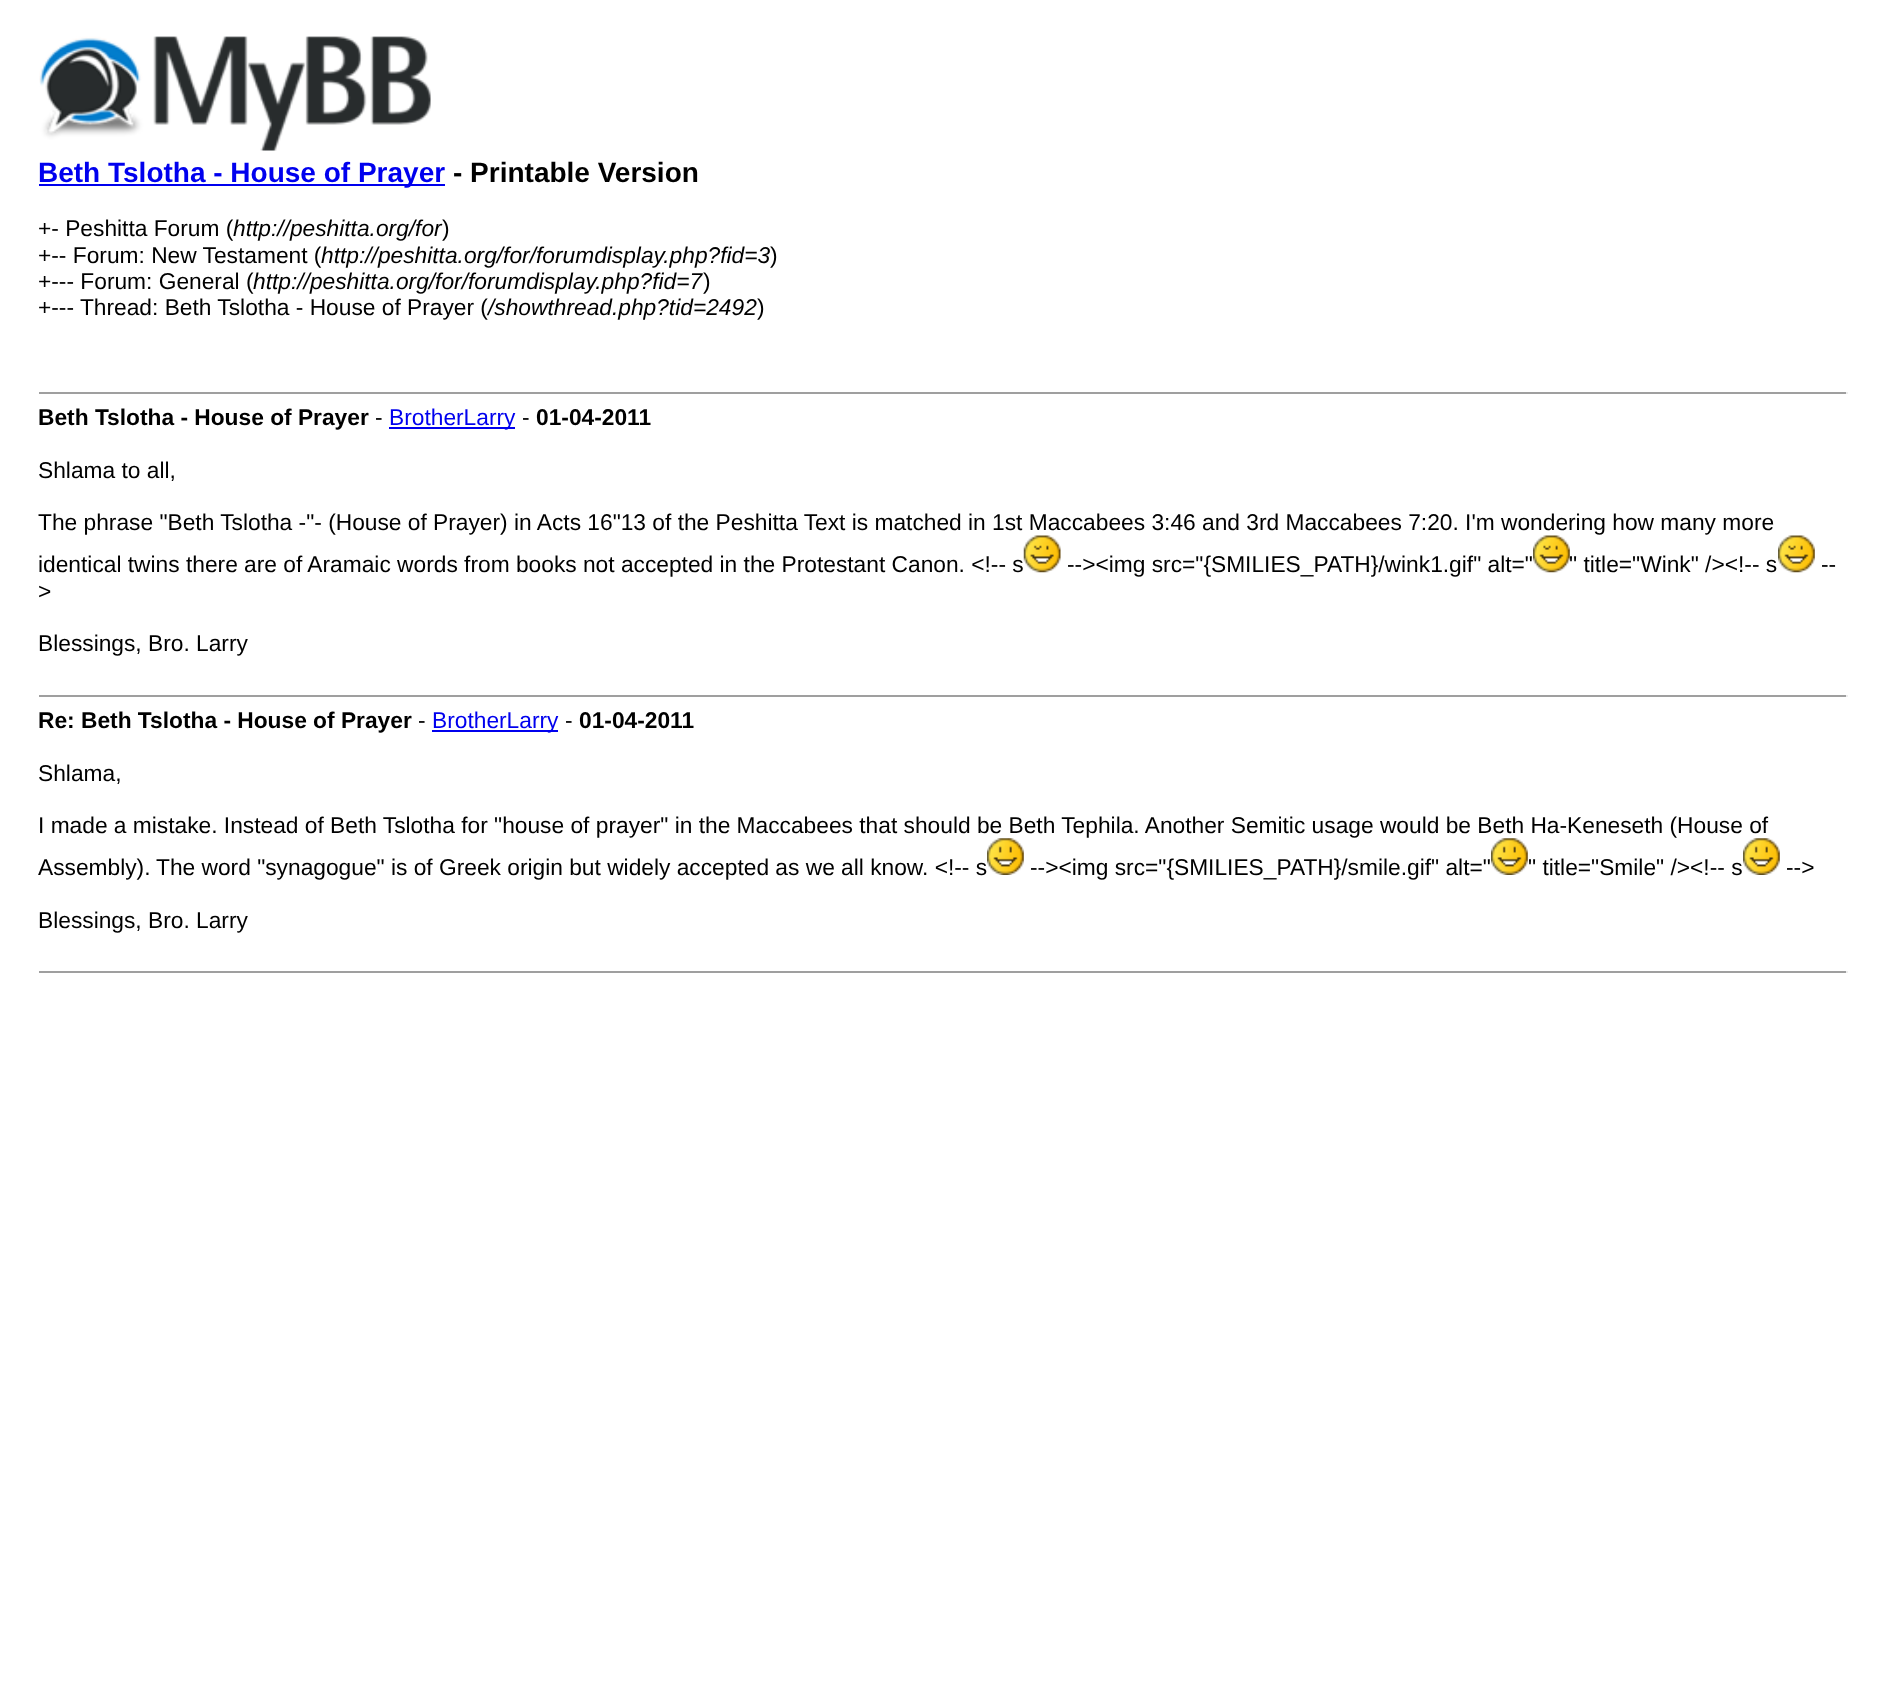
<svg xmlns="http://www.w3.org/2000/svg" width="1886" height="1684">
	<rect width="100%" height="100%" fill="#FFFFFF" />
	<image x="39" y="36" width="392" height="115" href="assets/img1.png" />
	<rect x="39" y="184" width="406" height="2" fill="#0000EE" />
	<text x="38" y="182" font-family="Liberation Sans" font-size="28" font-weight="700" fill="#0000EE">Beth Tslotha - House of Prayer</text>
	<text x="453" y="182" font-family="Liberation Sans" font-size="28" font-weight="700" fill="#000000">- Printable Version</text>
	<text x="38" y="236" font-family="Liberation Sans" font-size="22.75" fill="#000000">+- Peshitta Forum (</text>
	<text x="233" y="236" font-family="Liberation Sans" font-size="22.75" font-style="italic" fill="#000000">http://peshitta.org/for</text>
	<g font-family="Liberation Sans" font-size="22.75" fill="#000000">
		<text x="442" y="236">)</text>
		<text x="38" y="263">+-- Forum: New Testament (</text>
	</g>
	<text x="321" y="263" font-family="Liberation Sans" font-size="22.75" font-style="italic" fill="#000000">http://peshitta.org/for/forumdisplay.php?fid=3</text>
	<g font-family="Liberation Sans" font-size="22.75" fill="#000000">
		<text x="770" y="263">)</text>
		<text x="38" y="289">+--- Forum: General (</text>
	</g>
	<text x="253" y="289" font-family="Liberation Sans" font-size="22.75" font-style="italic" fill="#000000">http://peshitta.org/for/forumdisplay.php?fid=7</text>
	<g font-family="Liberation Sans" font-size="22.75" fill="#000000">
		<text x="703" y="289">)</text>
		<text x="38" y="315">+--- Thread: Beth Tslotha - House of Prayer (</text>
	</g>
	<text x="488" y="315" font-family="Liberation Sans" font-size="22.75" font-style="italic" fill="#000000">/showthread.php?tid=2492</text>
	<text x="757" y="315" font-family="Liberation Sans" font-size="22.75" fill="#000000">)</text>
	<rect x="39" y="392" width="1809" height="2" fill="#9F9F9F" />
	<rect x="1846" y="392" width="2" height="2" fill="#EEEEEE" />
	<text x="38" y="425" font-family="Liberation Sans" font-size="22.75" font-weight="700" fill="#000000">Beth Tslotha - House of Prayer</text>
	<text x="375" y="425" font-family="Liberation Sans" font-size="22.75" fill="#000000">-</text>
	<rect x="389" y="427" width="126" height="2" fill="#0000EE" />
	<text x="389" y="425" font-family="Liberation Sans" font-size="22.75" fill="#0000EE">BrotherLarry</text>
	<text x="522" y="425" font-family="Liberation Sans" font-size="22.75" fill="#000000">-</text>
	<text x="536" y="425" font-family="Liberation Sans" font-size="22.75" font-weight="700" fill="#000000">01-04-2011</text>
	<g font-family="Liberation Sans" font-size="22.75" fill="#000000">
		<text x="38" y="478">Shlama to all,</text>
		<text x="38" y="530">The phrase "Beth Tslotha -"- (House of Prayer) in Acts 16"13 of the Peshitta Text is matched in 1st Maccabees 3:46 and 3rd Maccabees 7:20. I'm wondering how many more</text>
		<text x="38" y="572">identical twins there are of Aramaic words from books not accepted in the Protestant Canon. &lt;!-- s</text>
	</g>
	<image x="1023" y="535" width="38" height="38" href="assets/img2.png" />
	<text x="1067" y="572" font-family="Liberation Sans" font-size="22.75" fill="#000000">--&gt;&lt;img src="{SMILIES_PATH}/wink1.gif" alt="</text>
	<image x="1533" y="535" width="37" height="38" href="assets/img3.png" />
	<text x="1569" y="572" font-family="Liberation Sans" font-size="22.75" fill="#000000">" title="Wink" /&gt;&lt;!-- s</text>
	<image x="1778" y="535" width="37" height="38" href="assets/img4.png" />
	<g font-family="Liberation Sans" font-size="22.75" fill="#000000">
		<text x="1821" y="572">--</text>
		<text x="38" y="599">&gt;</text>
		<text x="38" y="651">Blessings, Bro. Larry</text>
	</g>
	<rect x="39" y="695" width="1809" height="2" fill="#9F9F9F" />
	<rect x="1846" y="695" width="2" height="2" fill="#EEEEEE" />
	<text x="38" y="728" font-family="Liberation Sans" font-size="22.75" font-weight="700" fill="#000000">Re: Beth Tslotha - House of Prayer</text>
	<text x="418" y="728" font-family="Liberation Sans" font-size="22.75" fill="#000000">-</text>
	<rect x="432" y="730" width="126" height="2" fill="#0000EE" />
	<text x="432" y="728" font-family="Liberation Sans" font-size="22.75" fill="#0000EE">BrotherLarry</text>
	<text x="565" y="728" font-family="Liberation Sans" font-size="22.75" fill="#000000">-</text>
	<text x="579" y="728" font-family="Liberation Sans" font-size="22.75" font-weight="700" fill="#000000">01-04-2011</text>
	<g font-family="Liberation Sans" font-size="22.75" fill="#000000">
		<text x="38" y="781">Shlama,</text>
		<text x="38" y="833">I made a mistake. Instead of Beth Tslotha for "house of prayer" in the Maccabees that should be Beth Tephila. Another Semitic usage would be Beth Ha-Keneseth (House of</text>
		<text x="38" y="875">Assembly).</text>
		<text x="156" y="875">The word "synagogue" is of Greek origin but widely accepted as we all know. &lt;!-- s</text>
	</g>
	<image x="987" y="838" width="37" height="37" href="assets/img5.png" />
	<text x="1030" y="875" font-family="Liberation Sans" font-size="22.75" fill="#000000">--&gt;&lt;img src="{SMILIES_PATH}/smile.gif" alt="</text>
	<image x="1491" y="838" width="37" height="37" href="assets/img6.png" />
	<text x="1528" y="875" font-family="Liberation Sans" font-size="22.75" fill="#000000">" title="Smile" /&gt;&lt;!-- s</text>
	<image x="1743" y="838" width="37" height="37" href="assets/img6.png" />
	<g font-family="Liberation Sans" font-size="22.75" fill="#000000">
		<text x="1786" y="875">--&gt;</text>
		<text x="38" y="928">Blessings, Bro. Larry</text>
	</g>
	<rect x="39" y="971" width="1809" height="2" fill="#9F9F9F" />
	<rect x="1846" y="971" width="2" height="2" fill="#EEEEEE" />
</svg>
